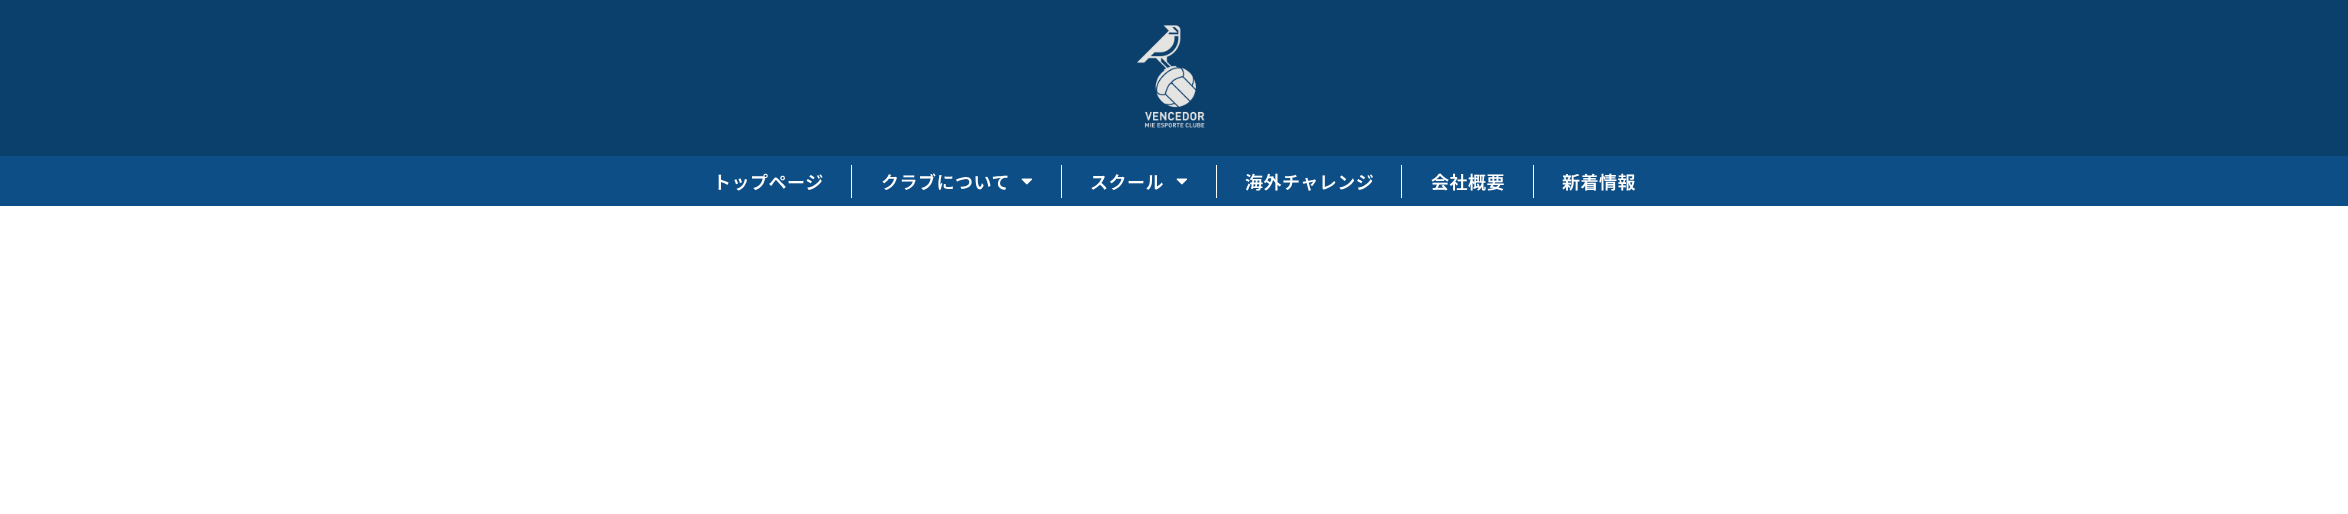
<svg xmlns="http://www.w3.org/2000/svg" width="2348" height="514">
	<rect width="100%" height="100%" fill="#FFFFFF" />
	<rect x="0" y="0" width="2348" height="156" fill="#0B3F6C" />
	<image x="1137" y="25" width="68" height="103" href="assets/img1.png" />
	<rect x="0" y="156" width="2348" height="50" fill="#0E4E86" />
	<text x="713" y="189" font-family="Noto Sans JP" font-size="18" font-weight="600" letter-spacing="0.5" fill="#FFFFFF">トップページ</text>
	<rect x="851" y="165" width="1" height="33" fill="#FFFFFF" />
	<text x="881" y="189" font-family="Noto Sans JP" font-size="18" font-weight="600" letter-spacing="0.5" fill="#FFFFFF">クラブについて</text>
	<image x="1021" y="178" width="12" height="7" href="assets/img2.png" />
	<rect x="1061" y="165" width="1" height="33" fill="#FFFFFF" />
	<text x="1090" y="189" font-family="Noto Sans JP" font-size="18" font-weight="600" letter-spacing="0.5" fill="#FFFFFF">スクール</text>
	<image x="1176" y="178" width="12" height="7" href="assets/img2.png" />
	<rect x="1216" y="165" width="1" height="33" fill="#FFFFFF" />
	<text x="1245" y="189" font-family="Noto Sans JP" font-size="18" font-weight="600" letter-spacing="0.5" fill="#FFFFFF">海外チャレンジ</text>
	<rect x="1401" y="165" width="1" height="33" fill="#FFFFFF" />
	<text x="1431" y="189" font-family="Noto Sans JP" font-size="18" font-weight="600" letter-spacing="0.5" fill="#FFFFFF">会社概要</text>
	<rect x="1533" y="165" width="1" height="33" fill="#FFFFFF" />
	<text x="1562" y="189" font-family="Noto Sans JP" font-size="18" font-weight="600" letter-spacing="0.5" fill="#FFFFFF">新着情報</text>
</svg>
